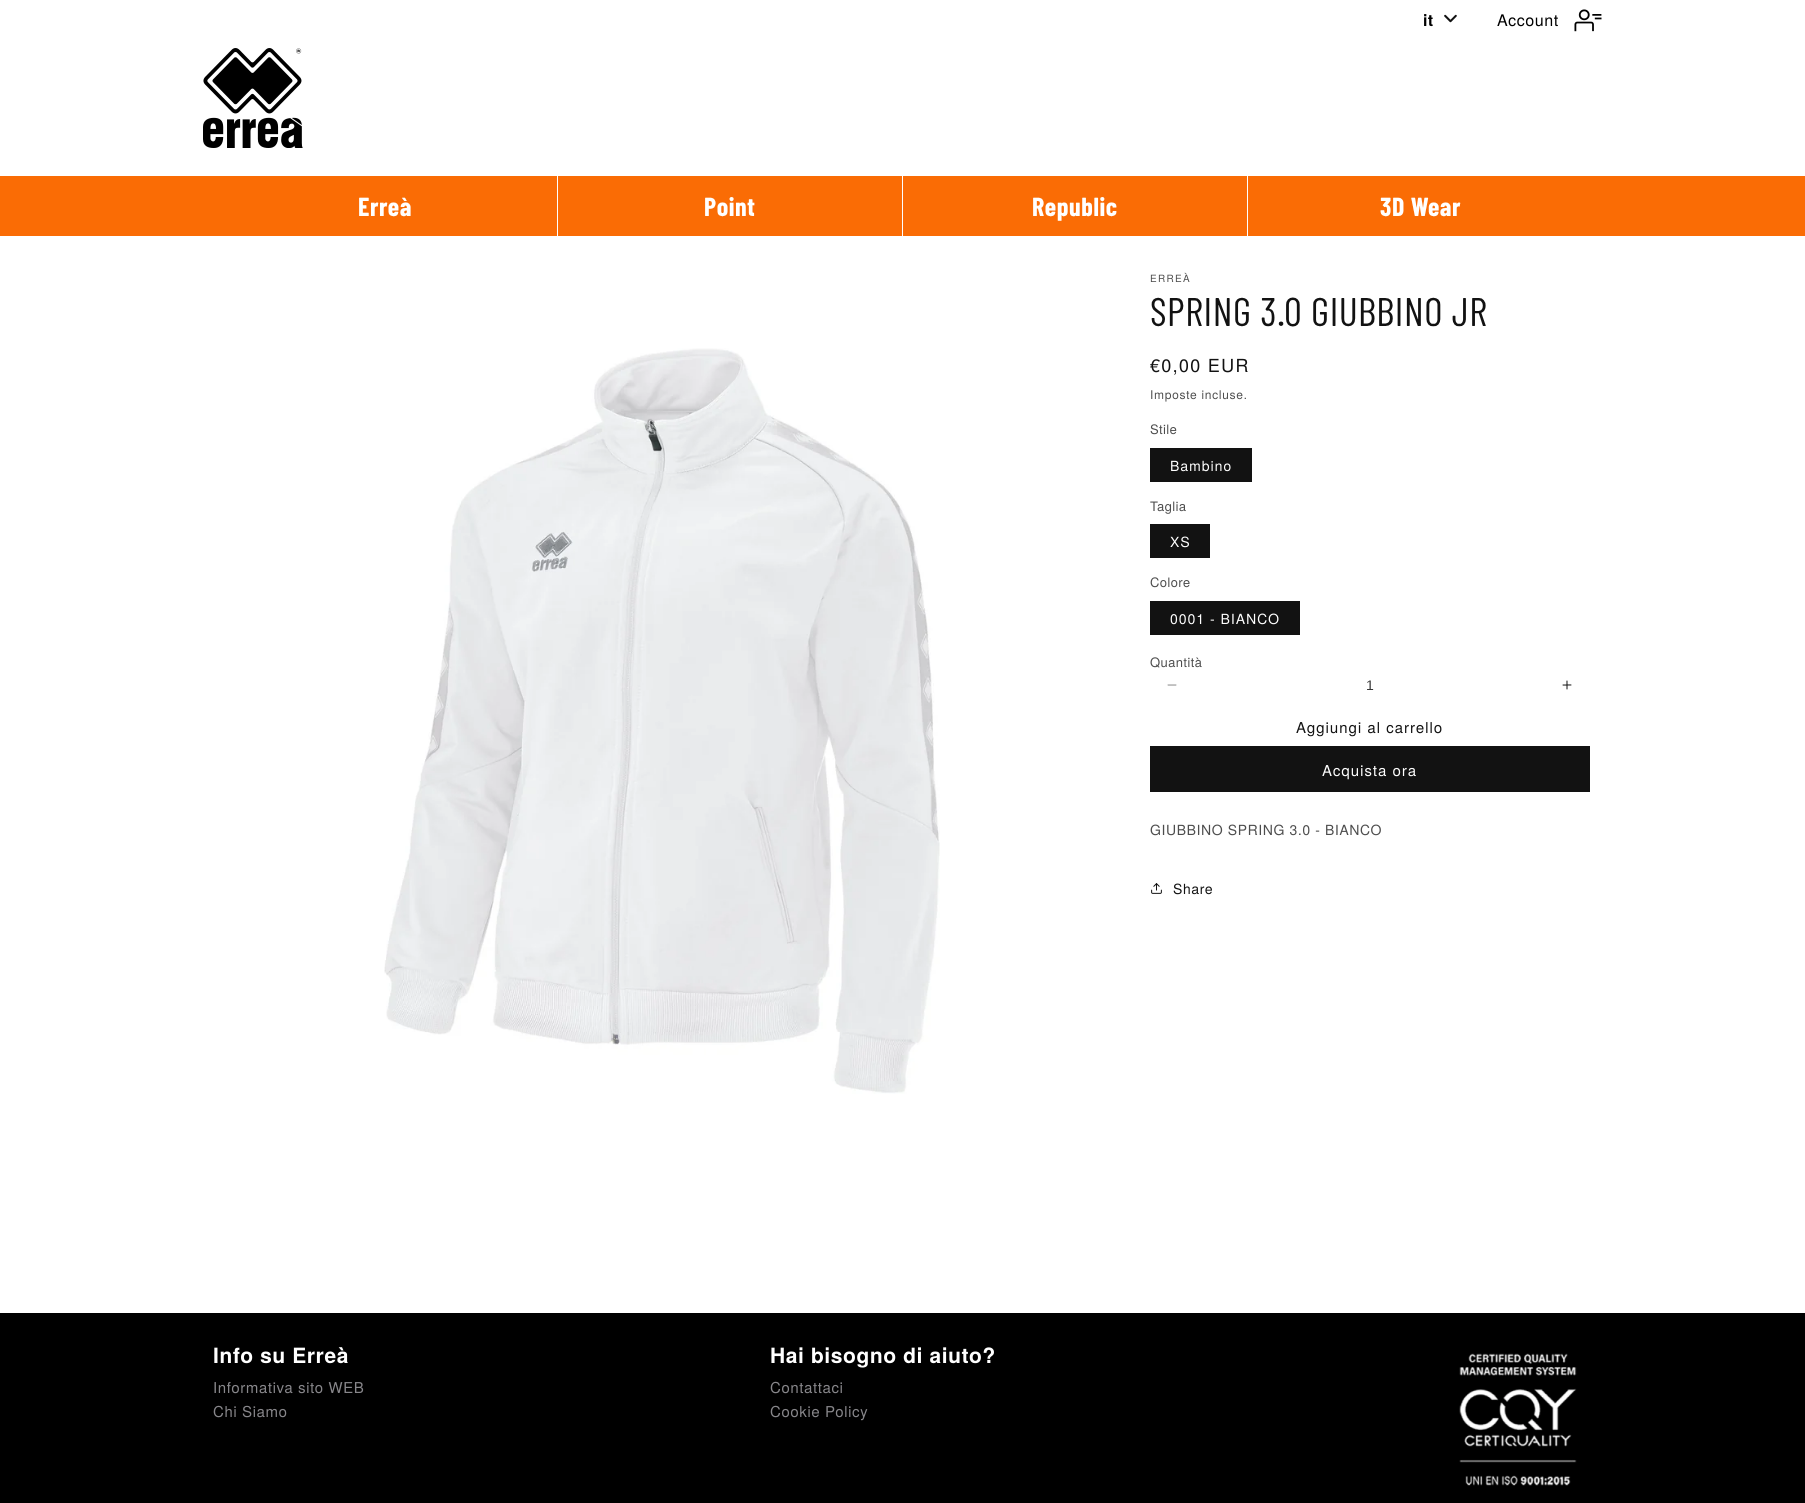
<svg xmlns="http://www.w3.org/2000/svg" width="1805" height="1503">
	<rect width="100%" height="100%" fill="#FFFFFF" />
	<image x="1424" y="14" width="9" height="13" href="assets/img1.png" />
	<image x="1444" y="14" width="13" height="9" href="assets/img2.png" />
	<image x="1497" y="14" width="61" height="13" href="assets/img3.png" />
	<image x="1574" y="9" width="28" height="23" href="assets/img4.png" />
	<image x="203" y="48" width="100" height="100" href="assets/img5.png" />
	<rect x="0" y="176" width="1805" height="60" fill="#FA6C05" />
	<rect x="557" y="176" width="1" height="60" fill="#FFFFFF" />
	<text x="358" y="216" font-family="Barlow Condensed" font-size="26" font-weight="700" letter-spacing="0.6" fill="#FFFFFF">Erreà</text>
	<rect x="902" y="176" width="1" height="60" fill="#FFFFFF" />
	<text x="704" y="216" font-family="Barlow Condensed" font-size="26" font-weight="700" letter-spacing="0.6" fill="#FFFFFF">Point</text>
	<rect x="1247" y="176" width="1" height="60" fill="#FFFFFF" />
	<g font-family="Barlow Condensed" font-size="26" font-weight="700" letter-spacing="0.6" fill="#FFFFFF">
		<text x="1032" y="216">Republic</text>
		<text x="1380" y="216">3D Wear</text>
	</g>
	<image x="384" y="348" width="556" height="746" href="assets/img6.png" />
	<image x="1150" y="272" width="40" height="10" href="assets/img7.png" />
	<text x="1150" y="326" font-family="Barlow Condensed" font-size="40" letter-spacing="0.6" fill="#121212">SPRING 3.0 GIUBBINO JR</text>
	<image x="1150" y="358" width="98" height="17" href="assets/img8.png" />
	<image x="1151" y="390" width="95" height="12" href="assets/img9.png" />
	<image x="1150" y="424" width="27" height="11" href="assets/img10.png" />
	<rect x="1150" y="448" width="102" height="34" fill="#121212" />
	<image x="1171" y="460" width="60" height="12" href="assets/img11.png" />
	<image x="1150" y="501" width="36" height="13" href="assets/img12.png" />
	<rect x="1150" y="524" width="60" height="34" fill="#121212" />
	<image x="1170" y="536" width="19" height="12" href="assets/img13.png" />
	<image x="1150" y="577" width="40" height="11" href="assets/img14.png" />
	<rect x="1150" y="601" width="150" height="34" fill="#121212" />
	<image x="1170" y="613" width="109" height="12" href="assets/img15.png" />
	<image x="1150" y="657" width="52" height="11" href="assets/img16.png" />
	<image x="1167" y="684" width="10" height="2" href="assets/img17.png" />
	<text x="1366" y="690" font-family="Liberation Sans" font-size="14" fill="#363636">1</text>
	<image x="1562" y="680" width="10" height="10" href="assets/img18.png" />
	<image x="1296" y="722" width="146" height="15" href="assets/img19.png" />
	<rect x="1150" y="746" width="440" height="46" fill="#121212" />
	<image x="1322" y="765" width="94" height="15" href="assets/img20.png" />
	<image x="1150" y="824" width="231" height="12" href="assets/img21.png" />
	<image x="1151" y="883" width="11" height="11" href="assets/img22.png" />
	<image x="1173" y="883" width="39" height="12" href="assets/img23.png" />
	<rect x="0" y="1313" width="1805" height="190" fill="#000000" />
	<image x="214" y="1347" width="134" height="17" href="assets/img24.png" />
	<image x="214" y="1382" width="150" height="12" href="assets/img25.png" />
	<image x="213" y="1405" width="74" height="13" href="assets/img26.png" />
	<image x="771" y="1347" width="223" height="21" href="assets/img27.png" />
	<image x="770" y="1381" width="72" height="13" href="assets/img28.png" />
	<image x="770" y="1405" width="98" height="16" href="assets/img29.png" />
	<image x="1459" y="1353" width="118" height="133" href="assets/img30.png" />
</svg>
